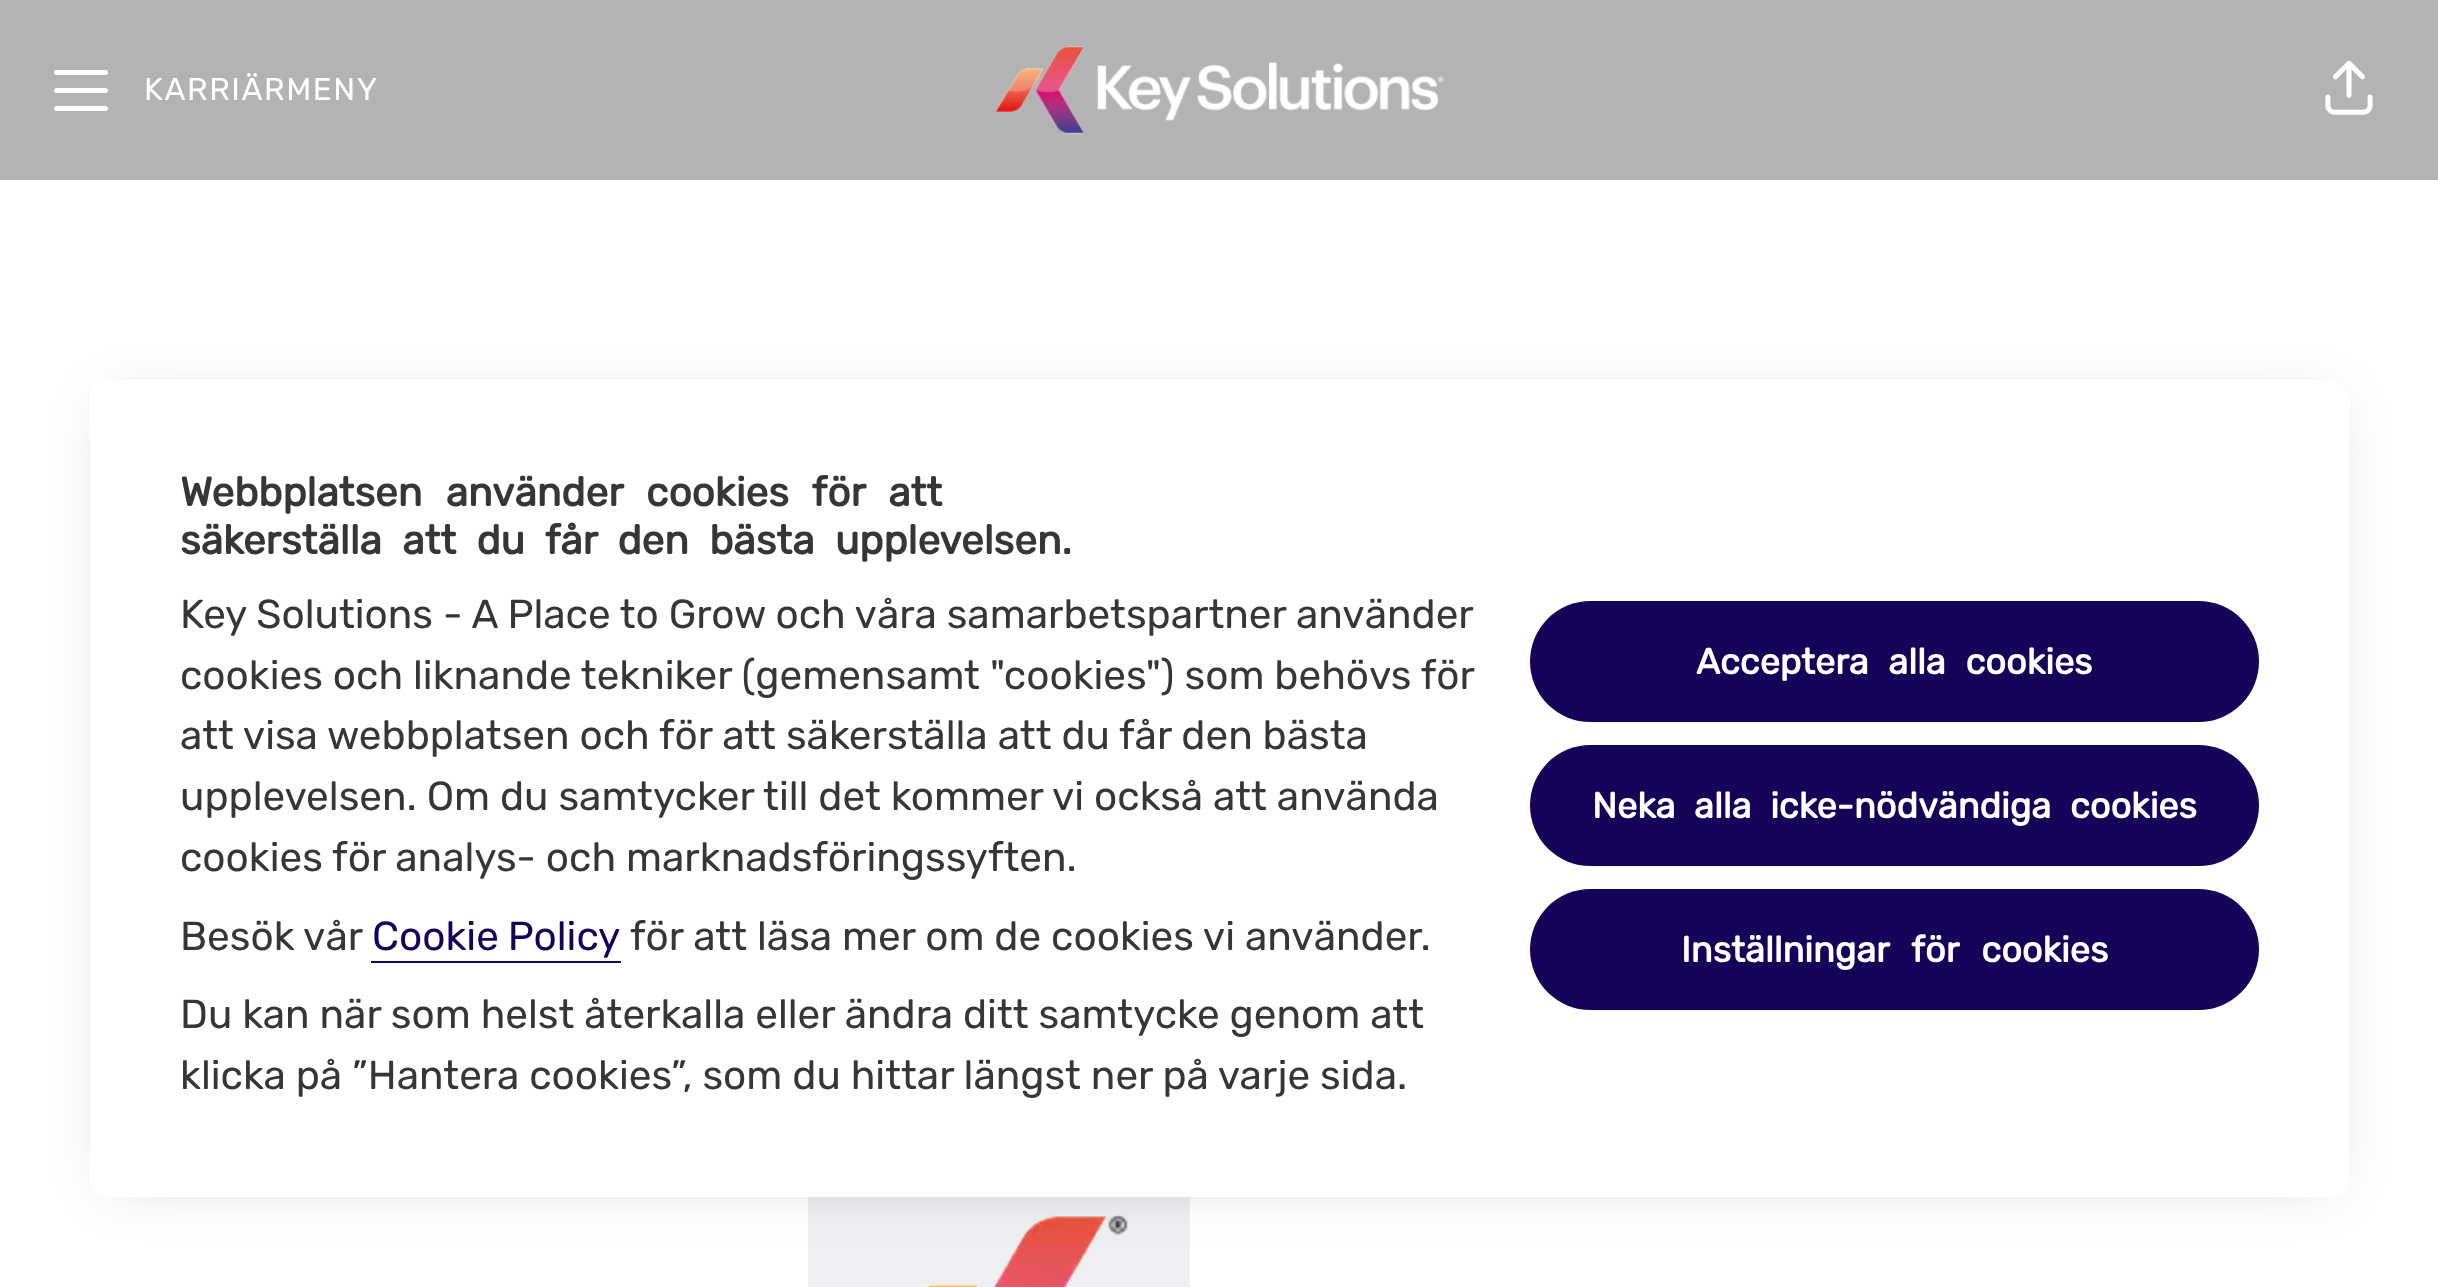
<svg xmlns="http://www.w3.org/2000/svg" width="2438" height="1287">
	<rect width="100%" height="100%" fill="#FFFFFF" />
	<rect x="0" y="0" width="2438" height="180" fill="#B3B3B3" />
	<rect x="54" y="70" width="54" height="5" rx="2.5" fill="#FFFFFF" />
	<rect x="54" y="88" width="54" height="5" rx="2.5" fill="#FFFFFF" />
	<rect x="54" y="106" width="54" height="5" rx="2.5" fill="#FFFFFF" />
	<text x="144" y="100" font-family="Rubik" font-size="31.5" letter-spacing="1.5" fill="#FFFFFF">KARRIÄRMENY</text>
	<image x="995" y="46" width="449" height="89" href="assets/img1.png" />
	<image x="2325" y="60" width="48" height="55" href="assets/img2.png" />
	<rect x="808" y="1197" width="382" height="90" fill="#EEEFF2" />
	<image x="921" y="1214" width="207" height="73" href="assets/img3.png" />
	<rect x="113" y="407" width="2214" height="772" fill="#000000" fill-opacity="0.18" filter="blur(30.5px)" />
	<rect x="90" y="380" width="2259" height="817" rx="18" fill="#FFFFFF" />
	<g font-family="Rubik" font-size="40.5" font-weight="700" fill="#363636">
		<text x="180" y="506" word-spacing="13.5">Webbplatsen använder cookies för att</text>
		<text x="180" y="554" word-spacing="10.5">säkerställa att du får den bästa upplevelsen.</text>
	</g>
	<g font-family="Rubik" font-size="40.5" fill="#363636">
		<text x="180" y="628">Key Solutions - A Place to Grow och våra samarbetspartner använder</text>
		<text x="180" y="689">cookies och liknande tekniker (gemensamt "cookies") som behövs för</text>
		<text x="180" y="749">att visa webbplatsen och för att säkerställa att du får den bästa</text>
		<text x="180" y="810">upplevelsen. Om du samtycker till det kommer vi också att använda</text>
		<text x="180" y="871">cookies för analys- och marknadsföringssyften.</text>
		<text x="180" y="950">Besök vår</text>
	</g>
	<text x="372" y="950" word-spacing="-1" font-family="Rubik" font-size="40.5" fill="#160258">Cookie Policy</text>
	<rect x="371" y="961" width="250" height="2" fill="#160258" />
	<g font-family="Rubik" font-size="40.5" fill="#363636">
		<text x="630" y="950">för att läsa mer om de cookies vi använder.</text>
		<text x="180" y="1028">Du kan när som helst återkalla eller ändra ditt samtycke genom att</text>
		<text x="180" y="1089">klicka på ”Hantera cookies”, som du hittar längst ner på varje sida.</text>
	</g>
	<rect x="1530" y="601" width="729" height="121" rx="60.5" fill="#160258" />
	<text x="1696" y="674" word-spacing="11" font-family="Rubik" font-size="36" font-weight="700" fill="#FFFFFF">Acceptera alla cookies</text>
	<rect x="1530" y="745" width="729" height="121" rx="60.5" fill="#160258" />
	<text x="1592" y="818" word-spacing="10" font-family="Rubik" font-size="36" font-weight="700" fill="#FFFFFF">Neka alla icke-nödvändiga cookies</text>
	<rect x="1530" y="889" width="729" height="121" rx="60.5" fill="#160258" />
	<text x="1681" y="962" word-spacing="14" font-family="Rubik" font-size="36" font-weight="700" fill="#FFFFFF">Inställningar för cookies</text>
</svg>
